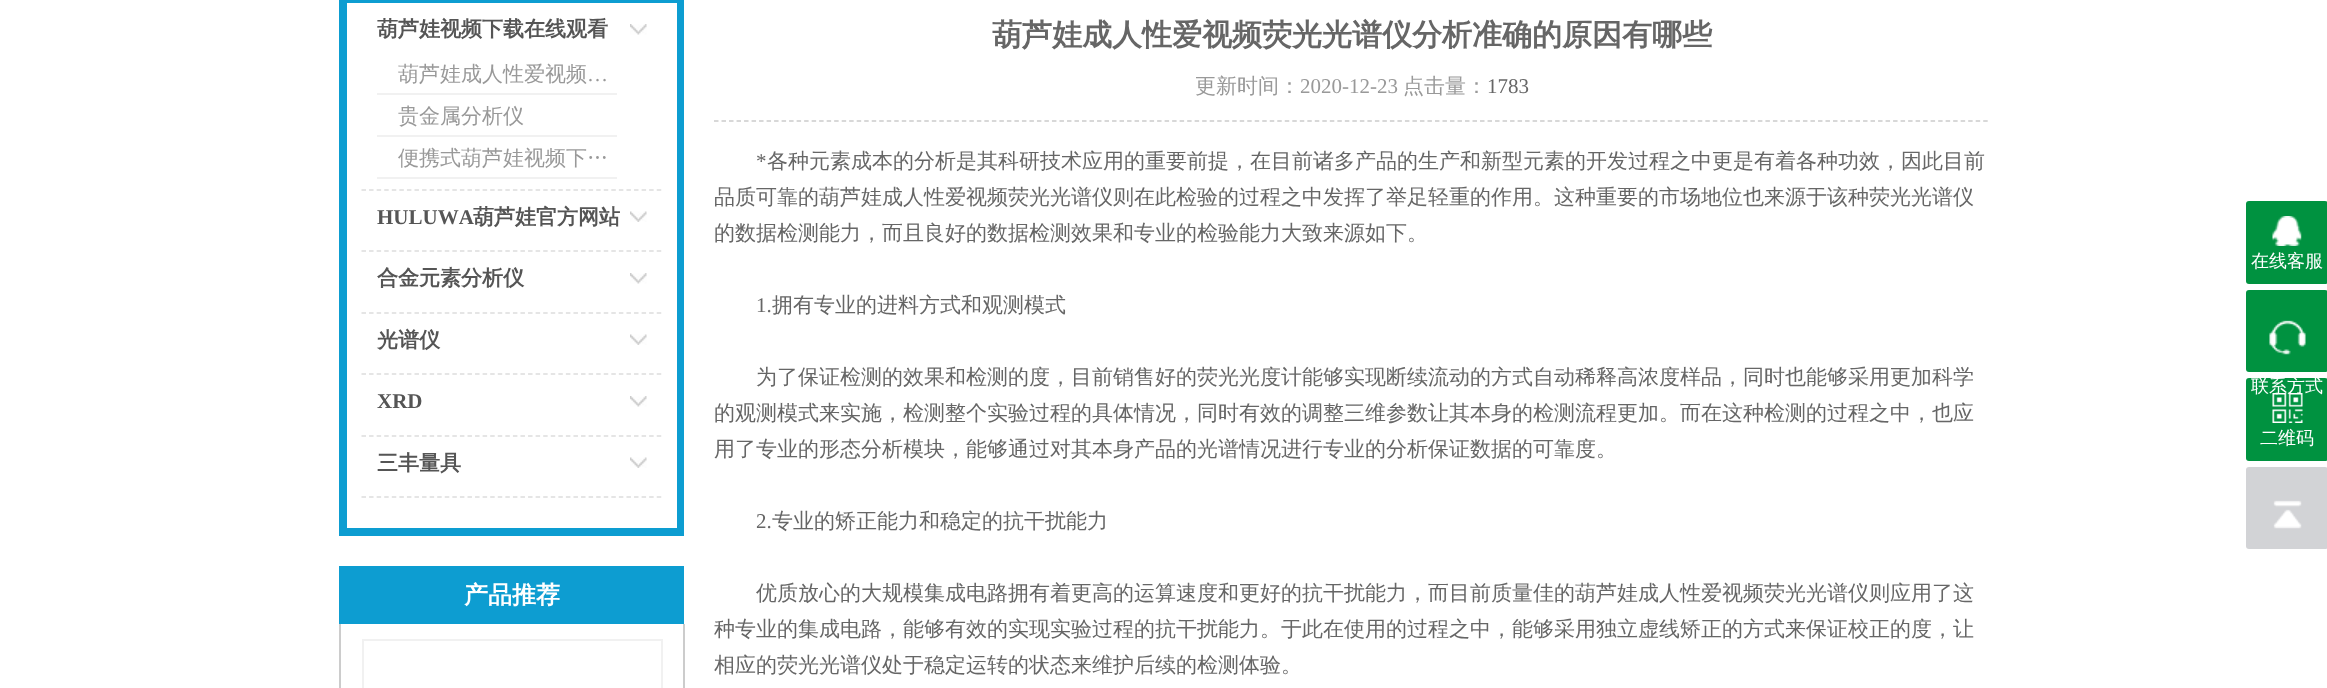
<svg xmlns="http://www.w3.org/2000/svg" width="2327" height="688">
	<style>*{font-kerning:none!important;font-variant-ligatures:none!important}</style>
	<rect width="100%" height="100%" fill="#FFFFFF" />
	<rect x="339" y="0" width="345" height="3" fill="#0D9DD1" />
	<rect x="677" y="3" width="7" height="533" fill="#0D9DD1" />
	<rect x="339" y="528" width="345" height="8" fill="#0D9DD1" />
	<rect x="339" y="3" width="8" height="533" fill="#0D9DD1" />
	<path d="M361.5 190H661.5" fill="none" stroke="#DDDDDD" stroke-width="1.5" stroke-dasharray="4.5 3.07" />
	<image x="630" y="24" width="17" height="11" href="assets/img1.png" />
	<text x="377" y="36" font-family="WenQuanYi Zen Hei" font-size="21" font-weight="700" fill="#555555">葫芦娃视频下载在线观看</text>
	<rect x="377" y="93" width="240" height="2" fill="#F1F1F1" />
	<text x="398" y="81" font-family="WenQuanYi Zen Hei" font-size="21" font-weight="500" fill="#999999">葫芦娃成人性爱视频</text>
	<text x="587" y="81" font-family="Liberation Serif" font-size="21" fill="#999999">…</text>
	<rect x="377" y="135" width="240" height="2" fill="#F1F1F1" />
	<text x="398" y="123" font-family="WenQuanYi Zen Hei" font-size="21" font-weight="500" fill="#999999">贵金属分析仪</text>
	<rect x="377" y="177" width="240" height="2" fill="#F1F1F1" />
	<text x="398" y="165" font-family="WenQuanYi Zen Hei" font-size="21" font-weight="500" fill="#999999">便携式葫芦娃视频下…</text>
	<path d="M361.5 251H661.5" fill="none" stroke="#DDDDDD" stroke-width="1.5" stroke-dasharray="4.5 3.07" />
	<image x="630" y="211" width="17" height="11" href="assets/img2.png" />
	<text x="377" y="224" font-family="Liberation Serif" font-size="21" font-weight="700" fill="#555555">HULUWA</text>
	<text x="473" y="224" font-family="WenQuanYi Zen Hei" font-size="21" font-weight="700" fill="#555555">葫芦娃官方网站</text>
	<path d="M361.5 313H661.5" fill="none" stroke="#DDDDDD" stroke-width="1.5" stroke-dasharray="4.5 3.07" />
	<image x="630" y="273" width="17" height="11" href="assets/img1.png" />
	<text x="377" y="285" font-family="WenQuanYi Zen Hei" font-size="21" font-weight="700" fill="#555555">合金元素分析仪</text>
	<path d="M361.5 374H661.5" fill="none" stroke="#DDDDDD" stroke-width="1.5" stroke-dasharray="4.5 3.07" />
	<image x="630" y="334" width="17" height="11" href="assets/img2.png" />
	<text x="377" y="347" font-family="WenQuanYi Zen Hei" font-size="21" font-weight="700" fill="#555555">光谱仪</text>
	<path d="M361.5 436H661.5" fill="none" stroke="#DDDDDD" stroke-width="1.5" stroke-dasharray="4.5 3.07" />
	<image x="630" y="396" width="17" height="11" href="assets/img1.png" />
	<text x="377" y="408" font-family="Liberation Serif" font-size="21" font-weight="700" fill="#555555">XRD</text>
	<path d="M361.5 497H661.5" fill="none" stroke="#DDDDDD" stroke-width="1.5" stroke-dasharray="4.5 3.07" />
	<image x="630" y="457" width="17" height="11" href="assets/img2.png" />
	<text x="377" y="470" font-family="WenQuanYi Zen Hei" font-size="21" font-weight="700" fill="#555555">三丰量具</text>
	<rect x="339" y="566" width="345" height="58" fill="#0D9DD1" />
	<text x="464" y="603" font-family="WenQuanYi Zen Hei" font-size="24" font-weight="700" fill="#FFFFFF">产品推荐</text>
	<rect x="683" y="624" width="2" height="64" fill="#CCCCCC" />
	<rect x="339" y="624" width="2" height="64" fill="#CCCCCC" />
	<rect x="363" y="640" width="299" height="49" fill="none" stroke="#F1F1F1" stroke-width="2" />
	<text x="992" y="45" font-family="WenQuanYi Zen Hei" font-size="30" font-weight="700" fill="#666666">葫芦娃成人性爱视频荧光光谱仪分析准确的原因有哪些</text>
	<path d="M714 121H1989" fill="none" stroke="#CCCCCC" stroke-width="1.5" stroke-dasharray="4.5 3.01" />
	<text x="1195" y="93" font-family="WenQuanYi Zen Hei" font-size="21" font-weight="500" fill="#999999">更新时间：</text>
	<text x="1300" y="93" font-family="Liberation Serif" font-size="21" fill="#999999">2020-12-23</text>
	<text x="1403" y="93" font-family="WenQuanYi Zen Hei" font-size="21" font-weight="500" fill="#999999">点击量：</text>
	<g font-family="Liberation Serif" font-size="21" fill="#666666">
		<text x="1487" y="93">1783</text>
		<text x="756" y="168">*</text>
	</g>
	<g font-family="WenQuanYi Zen Hei" font-size="21" font-weight="500" fill="#666666">
		<text x="767" y="168">各种元素成本的分析是其科研技术应用的重要前提，在目前诸多产品的生产和新型元素的开发过程之中更是有着各种功效，因此目前</text>
		<text x="714" y="204">品质可靠的葫芦娃成人性爱视频荧光光谱仪则在此检验的过程之中发挥了举足轻重的作用。这种重要的市场地位也来源于该种荧光光谱仪</text>
		<text x="714" y="240">的数据检测能力，而且良好的数据检测效果和专业的检验能力大致来源如下。</text>
	</g>
	<text x="756" y="312" font-family="Liberation Serif" font-size="21" fill="#666666">1.</text>
	<g font-family="WenQuanYi Zen Hei" font-size="21" font-weight="500" fill="#666666">
		<text x="772" y="312">拥有专业的进料方式和观测模式</text>
		<text x="756" y="384">为了保证检测的效果和检测的度，目前销售好的荧光光度计能够实现断续流动的方式自动稀释高浓度样品，同时也能够采用更加科学</text>
		<text x="714" y="420">的观测模式来实施，检测整个实验过程的具体情况，同时有效的调整三维参数让其本身的检测流程更加。而在这种检测的过程之中，也应</text>
		<text x="714" y="456">用了专业的形态分析模块，能够通过对其本身产品的光谱情况进行专业的分析保证数据的可靠度。</text>
	</g>
	<text x="756" y="528" font-family="Liberation Serif" font-size="21" fill="#666666">2.</text>
	<g font-family="WenQuanYi Zen Hei" font-size="21" font-weight="500" fill="#666666">
		<text x="772" y="528">专业的矫正能力和稳定的抗干扰能力</text>
		<text x="756" y="600">优质放心的大规模集成电路拥有着更高的运算速度和更好的抗干扰能力，而目前质量佳的葫芦娃成人性爱视频荧光光谱仪则应用了这</text>
		<text x="714" y="636">种专业的集成电路，能够有效的实现实验过程的抗干扰能力。于此在使用的过程之中，能够采用独立虚线矫正的方式来保证校正的度，让</text>
		<text x="714" y="672">相应的荧光光谱仪处于稳定运转的状态来维护后续的检测体验。</text>
	</g>
	<rect x="2246" y="201" width="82" height="83" rx="3" fill="#009240" />
	<image x="2272" y="216" width="30" height="30" href="assets/img3.png" />
	<text x="2251" y="267" font-family="WenQuanYi Zen Hei" font-size="18" font-weight="500" fill="#FFFFFF">在线客服</text>
	<rect x="2246" y="290" width="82" height="82" rx="3" fill="#009240" />
	<image x="2269" y="320" width="37" height="35" href="assets/img4.png" />
	<rect x="2246" y="378" width="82" height="83" rx="3" fill="#009240" />
	<text x="2251" y="392" font-family="WenQuanYi Zen Hei" font-size="18" font-weight="500" fill="#FFFFFF">联系方式</text>
	<image x="2272" y="393" width="31" height="30" href="assets/img5.png" />
	<text x="2260" y="444" font-family="WenQuanYi Zen Hei" font-size="18" font-weight="500" fill="#FFFFFF">二维码</text>
	<rect x="2246" y="467" width="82" height="82" rx="3" fill="#D2D3D6" />
	<image x="2273" y="500" width="29" height="29" href="assets/img6.png" />
</svg>
